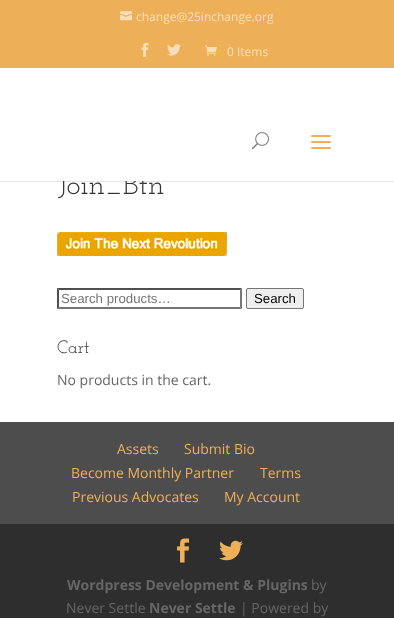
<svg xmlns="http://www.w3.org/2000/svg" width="394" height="618">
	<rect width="100%" height="100%" fill="#FFFFFF" />
	<rect x="0" y="0" width="394" height="68" fill="#EDB059" />
	<image x="120" y="11" width="12" height="10" href="assets/img1.png" />
	<text x="136" y="21" font-family="Open Sans" font-size="12" fill="#F8DFBD">change@25inchange.org</text>
	<image x="141" y="42" width="8" height="15" href="assets/img2.png" />
	<image x="167" y="44" width="14" height="12" href="assets/img3.png" />
	<image x="205" y="45" width="12" height="11" href="assets/img4.png" />
	<text x="227" y="56" font-family="Open Sans" font-size="12" fill="#F8DFBD">0 Items</text>
	<rect x="0" y="181" width="394" height="1" fill="#000000" fill-opacity="0.1" />
	<text x="57" y="194" font-family="Josefin Slab" font-size="30" fill="#333333">Join_Btn</text>
	<rect x="58" y="173" width="86" height="8" fill="#FFFFFF" />
	<image x="252" y="132" width="17" height="18" href="assets/img5.png" />
	<image x="311" y="135" width="20" height="14" href="assets/img6.png" />
	<image x="57" y="232" width="170" height="24" href="assets/img7.png" />
	<path d="M57 288H242L240 290H59Z" fill="#4F4F4F" />
	<path d="M242 288V309L240 307V290Z" fill="#767676" />
	<path d="M242 309H57L59 307H240Z" fill="#767676" />
	<path d="M57 309V288L59 290V307Z" fill="#4F4F4F" />
	<text x="61" y="303" font-family="Liberation Sans" font-size="13.25" fill="#757575">Search products…</text>
	<rect x="246.5" y="288.5" width="57" height="20" rx="1.5" fill="#EFEFEF" stroke="#767676" />
	<text x="254" y="303" font-family="Liberation Sans" font-size="13.25" fill="#000000">Search</text>
	<text x="57" y="353" font-family="Josefin Slab" font-size="18" fill="#333333">Cart</text>
	<text x="57" y="385" font-family="Open Sans" font-size="14" fill="#666666">No products in the cart.</text>
	<rect x="0" y="422" width="394" height="102" fill="#4D4D4D" />
	<g font-family="Open Sans" font-size="14" fill="#EDB059">
		<text x="117" y="454">Assets</text>
		<text x="184" y="454">Submit Bio</text>
		<text x="71" y="478">Become Monthly Partner</text>
		<text x="260" y="478">Terms</text>
		<text x="72" y="502">Previous Advocates</text>
		<text x="224" y="502">My Account</text>
	</g>
	<rect x="0" y="524" width="394" height="94" fill="#2E2E2E" />
	<image x="177" y="538" width="13" height="25" href="assets/img8.png" />
	<image x="219" y="540" width="24" height="21" href="assets/img9.png" />
	<text x="67" y="590" font-family="Open Sans" font-size="14" font-weight="700" fill="#666666">Wordpress Development &amp; Plugins</text>
	<g font-family="Open Sans" font-size="14" fill="#666666">
		<text x="311" y="590">by</text>
		<text x="66" y="613">Never Settle</text>
	</g>
	<text x="149" y="613" font-family="Open Sans" font-size="14" font-weight="700" fill="#666666">Never Settle</text>
	<text x="240" y="613" font-family="Open Sans" font-size="14" fill="#666666">| Powered by</text>
</svg>
